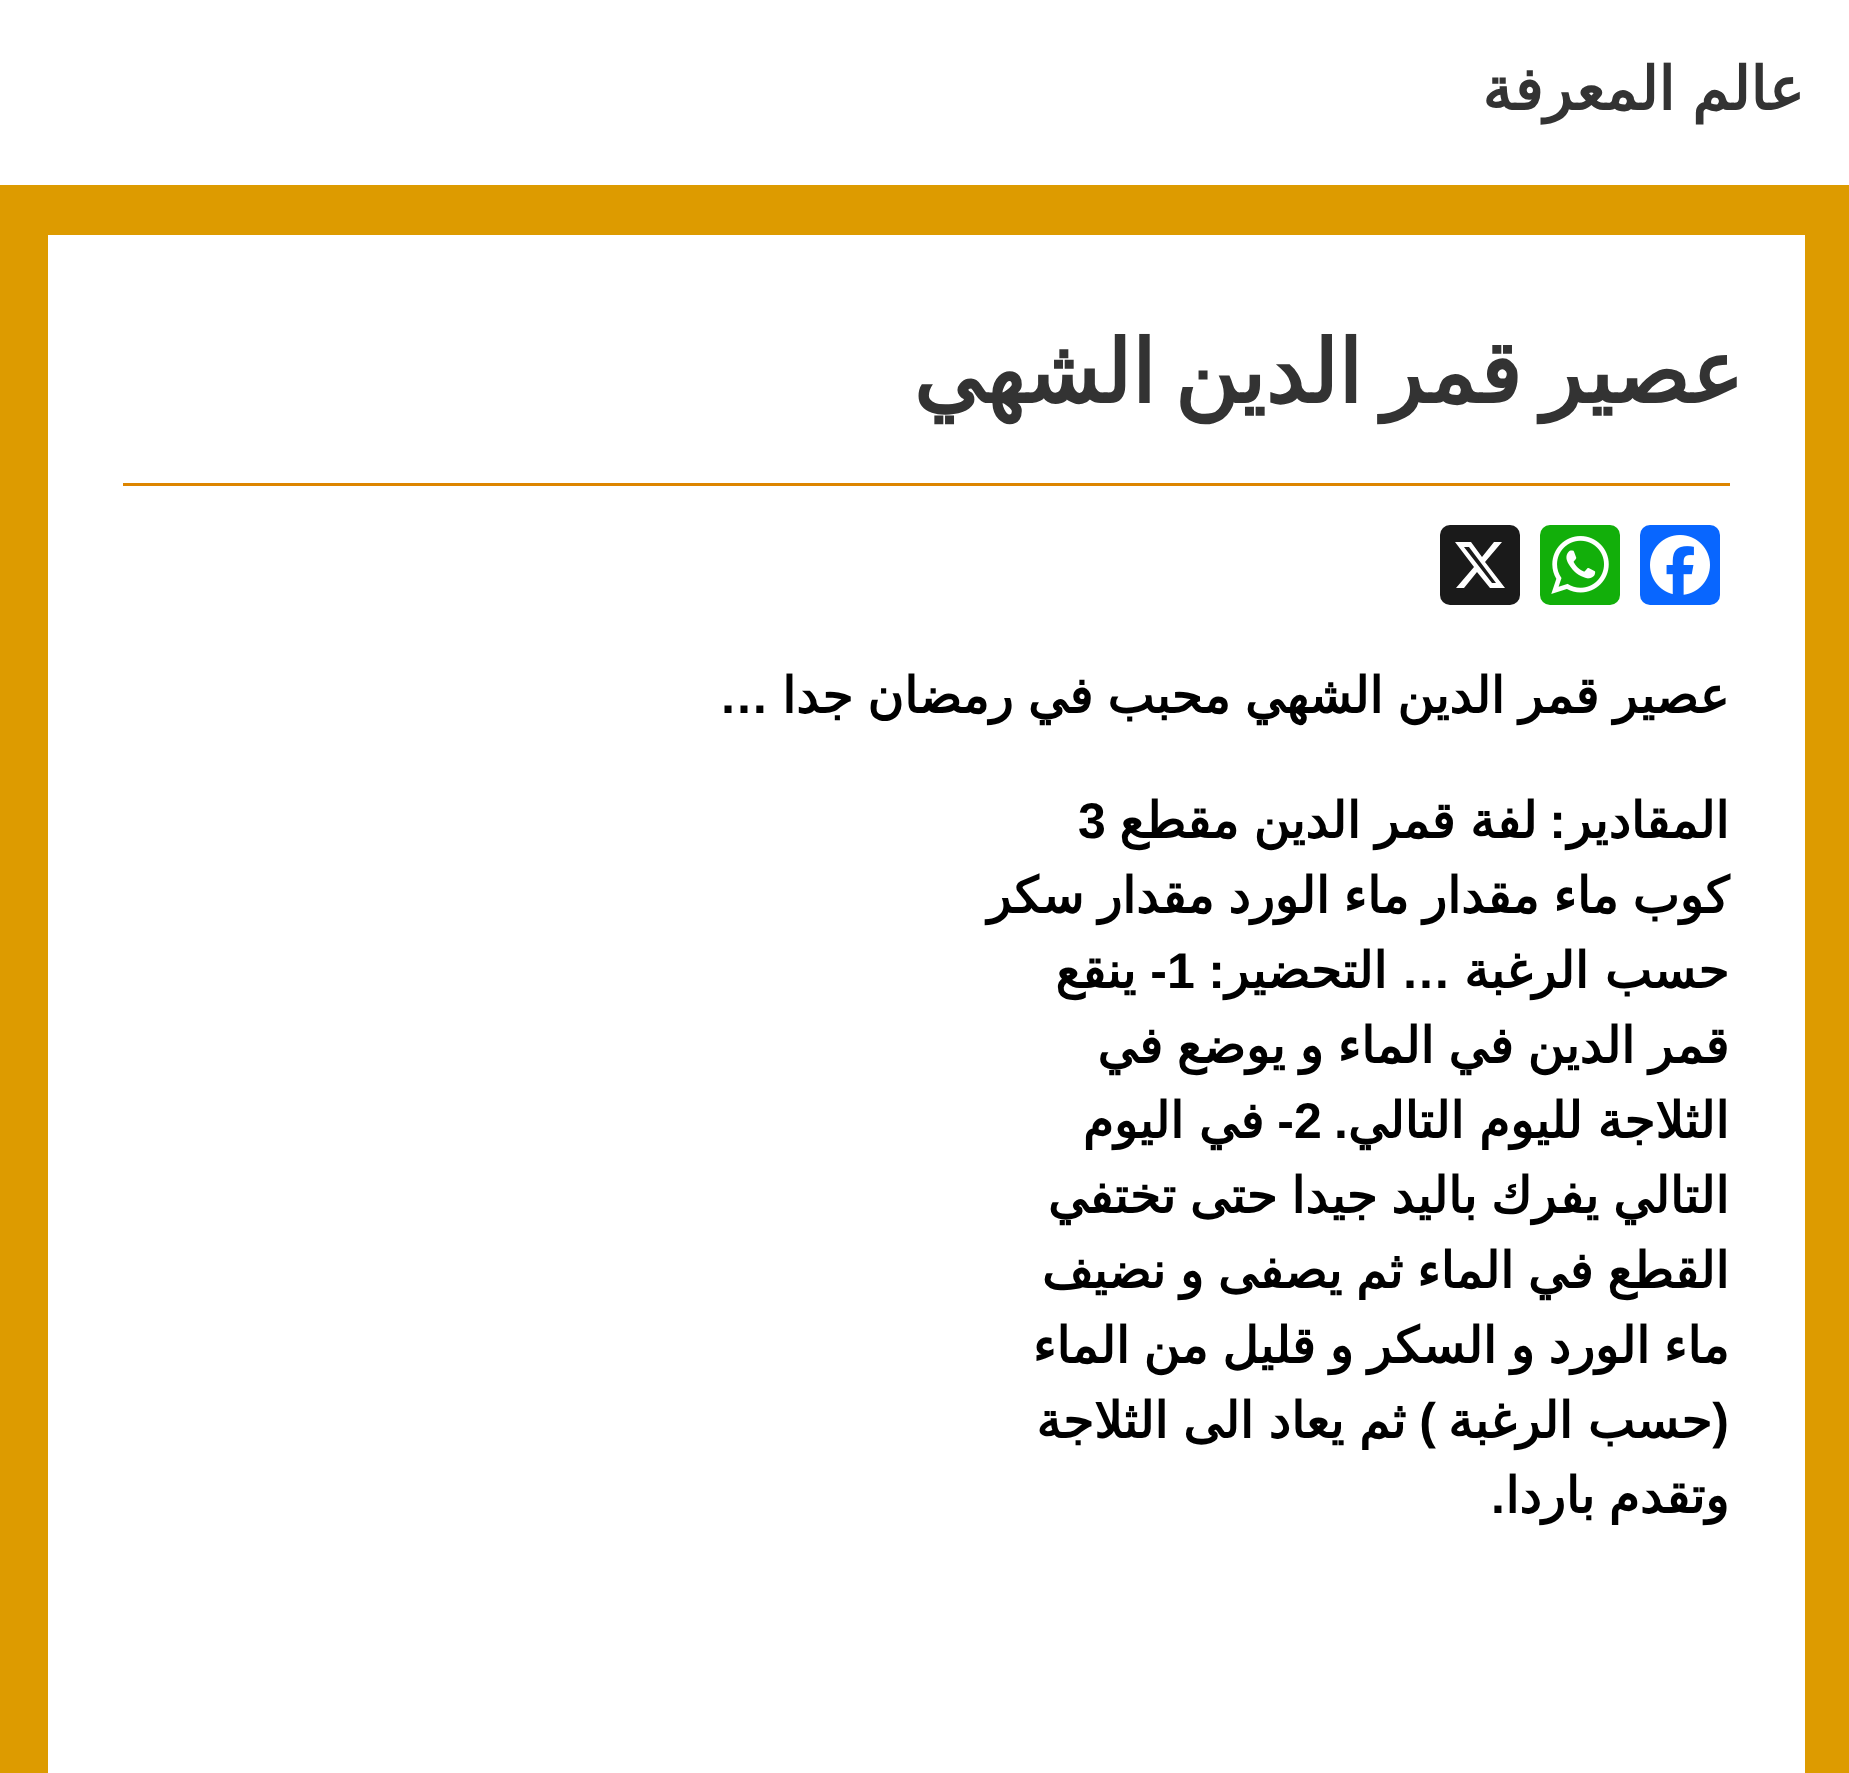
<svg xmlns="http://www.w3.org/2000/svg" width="1849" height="1773">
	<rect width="100%" height="100%" fill="#DD9B00" />
	<rect x="0" y="0" width="1849" height="185" fill="#FFFFFF" />
	<text x="1804" y="110" word-spacing="-2" font-family="DejaVu Sans" font-size="60" font-weight="700" direction="rtl" fill="#333333">عالم المعرفة</text>
	<rect x="48" y="235" width="1757" height="1538" fill="#FFFFFF" />
	<rect x="123" y="483" width="1607" height="3" fill="#DD8500" />
	<text x="1743" y="403" word-spacing="-9" font-family="DejaVu Sans" font-size="87.5" font-weight="700" letter-spacing="1.5" direction="rtl" fill="#333333">عصير قمر الدين الشهي</text>
	<rect x="1640" y="525" width="80" height="80" rx="10" fill="#0866FF" />
	<image x="1650" y="535" width="60" height="60" href="assets/img1.png" />
	<rect x="1540" y="525" width="80" height="80" rx="10" fill="#12AF0A" />
	<image x="1551" y="536" width="58" height="58" href="assets/img2.png" />
	<rect x="1440" y="525" width="80" height="80" rx="10" fill="#1A1A1A" />
	<path d="M1494 542H1502L1485 562L1505 588H1490L1477 572L1464 588H1456L1474 567L1455 542H1471L1482 557ZM1492 583H1496L1469 547H1464Z" fill="#FFFFFF" />
	<text x="1729" y="713" word-spacing="-1.75" font-family="DejaVu Sans" font-size="50" font-weight="700" direction="rtl" fill="#000000">عصير قمر الدين الشهي محبب في رمضان جدا</text>
	<text x="769" y="713" font-family="Liberation Sans" font-size="50" font-weight="700" direction="rtl" fill="#000000">…</text>
	<text x="1729" y="838" font-family="DejaVu Sans" font-size="50" font-weight="700" direction="rtl" fill="#000000">المقادير</text>
	<text x="1566" y="838" font-family="Liberation Sans" font-size="50" font-weight="700" direction="rtl" fill="#000000">:</text>
	<text x="1537" y="838" word-spacing="-1.5" font-family="DejaVu Sans" font-size="50" font-weight="700" direction="rtl" fill="#000000">لفة قمر الدين مقطع</text>
	<text x="1078" y="838" font-family="Liberation Sans" font-size="50" font-weight="700" fill="#000000">3</text>
	<g font-family="DejaVu Sans" font-size="50" font-weight="700" direction="rtl" fill="#000000">
		<text x="1729" y="913" word-spacing="-2">كوب ماء مقدار ماء الورد مقدار سكر</text>
		<text x="1729" y="988">حسب الرغبة</text>
		<text x="1387" y="988">التحضير</text>
	</g>
	<text x="1225" y="988" font-family="Liberation Sans" font-size="50" font-weight="700" direction="rtl" fill="#000000">:</text>
	<text x="1167" y="988" font-family="Liberation Sans" font-size="50" font-weight="700" fill="#000000">1</text>
	<text x="1167" y="988" font-family="Liberation Sans" font-size="50" font-weight="700" direction="rtl" fill="#000000">-</text>
	<text x="1136" y="988" font-family="DejaVu Sans" font-size="50" font-weight="700" direction="rtl" fill="#000000">ينقع</text>
	<text x="1451" y="988" font-family="Liberation Sans" font-size="50" font-weight="700" direction="rtl" fill="#000000">…</text>
	<g font-family="DejaVu Sans" font-size="50" font-weight="700" direction="rtl" fill="#000000">
		<text x="1729" y="1063" word-spacing="-2">قمر الدين في الماء و يوضع في</text>
		<text x="1729" y="1138" word-spacing="-1">الثلاجة لليوم التالي</text>
	</g>
	<text x="1294" y="1138" font-family="Liberation Sans" font-size="50" font-weight="700" fill="#000000">2</text>
	<text x="1294" y="1138" font-family="Liberation Sans" font-size="50" font-weight="700" direction="rtl" fill="#000000">-</text>
	<text x="1264" y="1138" word-spacing="-1" font-family="DejaVu Sans" font-size="50" font-weight="700" direction="rtl" fill="#000000">في اليوم</text>
	<text x="1348" y="1138" font-family="Liberation Sans" font-size="50" font-weight="700" direction="rtl" fill="#000000">.</text>
	<g font-family="DejaVu Sans" font-size="50" font-weight="700" direction="rtl" fill="#000000">
		<text x="1729" y="1213" word-spacing="-2">التالي يفرك باليد جيدا حتى تختفي</text>
		<text x="1729" y="1288" word-spacing="-2">القطع في الماء ثم يصفى و نضيف</text>
		<text x="1729" y="1363" word-spacing="-2">ماء الورد و السكر و قليل من الماء</text>
	</g>
	<text x="1729" y="1438" font-family="Liberation Sans" font-size="50" font-weight="700" direction="rtl" fill="#000000">(</text>
	<text x="1712" y="1438" word-spacing="-1" font-family="DejaVu Sans" font-size="50" font-weight="700" direction="rtl" fill="#000000">حسب الرغبة</text>
	<text x="1436" y="1438" font-family="Liberation Sans" font-size="50" font-weight="700" direction="rtl" fill="#000000">)</text>
	<g font-family="DejaVu Sans" font-size="50" font-weight="700" direction="rtl" fill="#000000">
		<text x="1406" y="1438" word-spacing="-1">ثم يعاد الى الثلاجة</text>
		<text x="1729" y="1513" word-spacing="-2">وتقدم باردا</text>
	</g>
	<text x="1505" y="1513" font-family="Liberation Sans" font-size="50" font-weight="700" direction="rtl" fill="#000000">.</text>
</svg>
